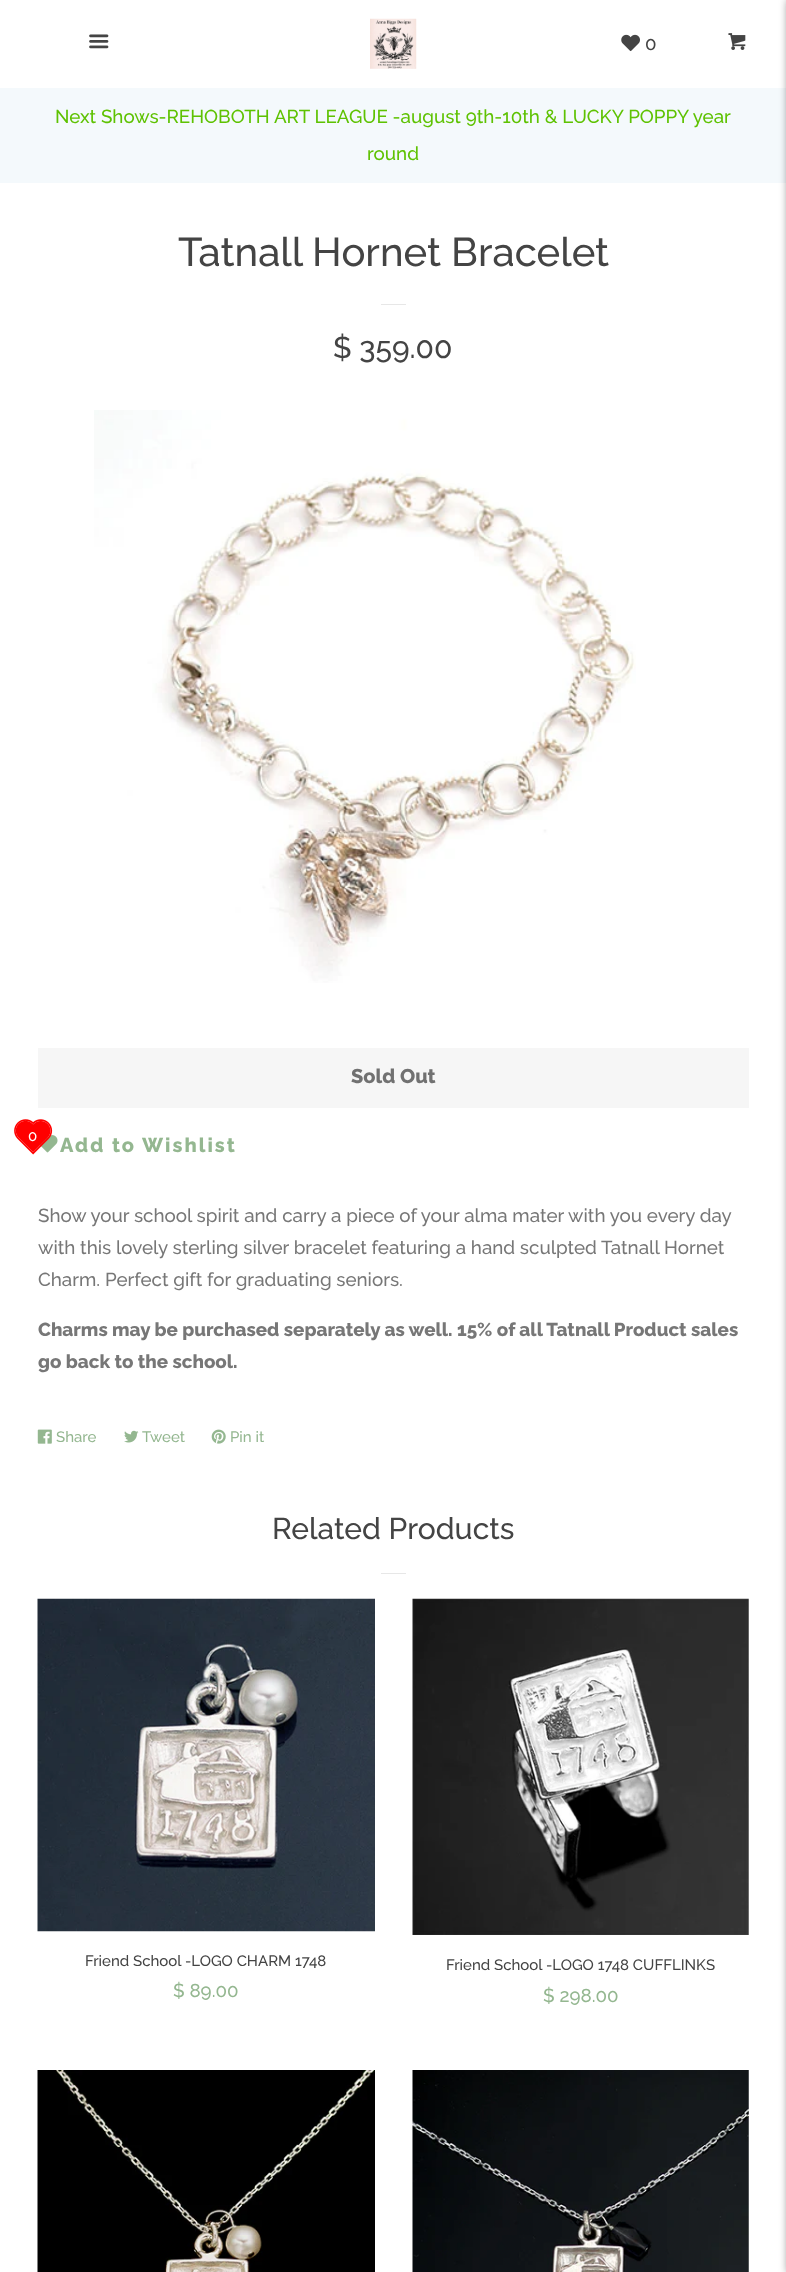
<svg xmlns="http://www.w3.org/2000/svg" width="786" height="2272">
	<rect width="100%" height="100%" fill="#FFFFFF" />
	<image x="89" y="34" width="20" height="15" href="assets/img1.png" />
	<image x="370" y="18" width="47" height="51" href="assets/img2.png" />
	<image x="621" y="34" width="19" height="18" href="assets/img3.png" />
	<text x="645" y="50" font-family="Raleway" font-size="18.75" font-weight="500" fill="#444444">0</text>
	<image x="728" y="33" width="18" height="17" href="assets/img4.png" />
	<image x="39" y="1135" width="19" height="18" href="assets/img7.png" />
	<image x="14" y="1119" width="39" height="36" href="assets/img5.png" />
	<text x="28" y="1141" font-family="Raleway" font-size="15" font-weight="500" fill="#FFFFFF">0</text>
	<rect x="0" y="88" width="786" height="95" fill="#F4F9FC" />
	<rect x="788" y="0" width="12" height="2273" fill="#000000" fill-opacity="0.5" filter="blur(4.5px)" />
	<g font-family="Raleway" font-size="18.75" font-weight="500" fill="#5EC202">
		<text x="55" y="123">Next Shows-REHOBOTH ART LEAGUE -august 9th-10th &amp; LUCKY POPPY year</text>
		<text x="367" y="160">round</text>
	</g>
	<text x="178" y="266" font-family="Raleway" font-size="40" font-weight="500" fill="#444444">Tatnall Hornet Bracelet</text>
	<rect x="381" y="304" width="25" height="1" fill="#E7E7E7" />
	<text x="333" y="358" font-family="Raleway" font-size="30" font-weight="500" fill="#444444">$ 359.00</text>
	<image x="94" y="410" width="542" height="573" href="assets/img6.png" />
	<rect x="38" y="1048" width="711" height="60" fill="#F6F6F6" />
	<text x="351" y="1083" font-family="Raleway" font-size="20" font-weight="800" fill="#717171">Sold Out</text>
	<text x="60" y="1152" font-family="Raleway" font-size="20" font-weight="800" letter-spacing="2" fill="#94B790">Add to Wishlist</text>
	<g font-family="Raleway" font-size="18.75" font-weight="500" fill="#777777">
		<text x="38" y="1222">Show your school spirit and carry a piece of your alma mater with you every day</text>
		<text x="38" y="1254">with this lovely sterling silver bracelet featuring a hand sculpted Tatnall Hornet</text>
		<text x="38" y="1286">Charm. Perfect gift for graduating seniors.</text>
	</g>
	<g font-family="Raleway" font-size="18.75" font-weight="800" fill="#777777">
		<text x="38" y="1336">Charms may be purchased separately as well. 15% of all Tatnall Product sales</text>
		<text x="38" y="1368">go back to the school.</text>
	</g>
	<image x="37" y="1429" width="15" height="15" href="assets/img8.png" />
	<text x="56" y="1442" font-family="Raleway" font-size="15" font-weight="500" fill="#94B790">Share</text>
	<image x="124" y="1430" width="15" height="13" href="assets/img9.png" />
	<text x="142" y="1442" font-family="Raleway" font-size="15" font-weight="500" fill="#94B790">Tweet</text>
	<image x="211" y="1429" width="15" height="15" href="assets/img10.png" />
	<text x="230" y="1442" font-family="Raleway" font-size="15" font-weight="500" fill="#94B790">Pin it</text>
	<text x="272" y="1539" font-family="Raleway" font-size="30" font-weight="500" fill="#444444">Related Products</text>
	<rect x="381" y="1573" width="25" height="1" fill="#E7E7E7" />
	<image x="37" y="1598" width="338" height="334" href="assets/img11.png" />
	<text x="85" y="1966" font-family="Raleway" font-size="15" font-weight="500" fill="#444444">Friend School -LOGO CHARM 1748</text>
	<text x="173" y="1997" font-family="Raleway" font-size="18.75" font-weight="500" fill="#94B790">$ 89.00</text>
	<image x="412" y="1598" width="337" height="337" href="assets/img12.png" />
	<text x="446" y="1970" font-family="Raleway" font-size="15" font-weight="500" fill="#444444">Friend School -LOGO 1748 CUFFLINKS</text>
	<text x="543" y="2002" font-family="Raleway" font-size="18.75" font-weight="500" fill="#94B790">$ 298.00</text>
	<image x="37" y="2070" width="338" height="202" href="assets/img13.png" />
	<image x="412" y="2070" width="337" height="202" href="assets/img14.png" />
</svg>
